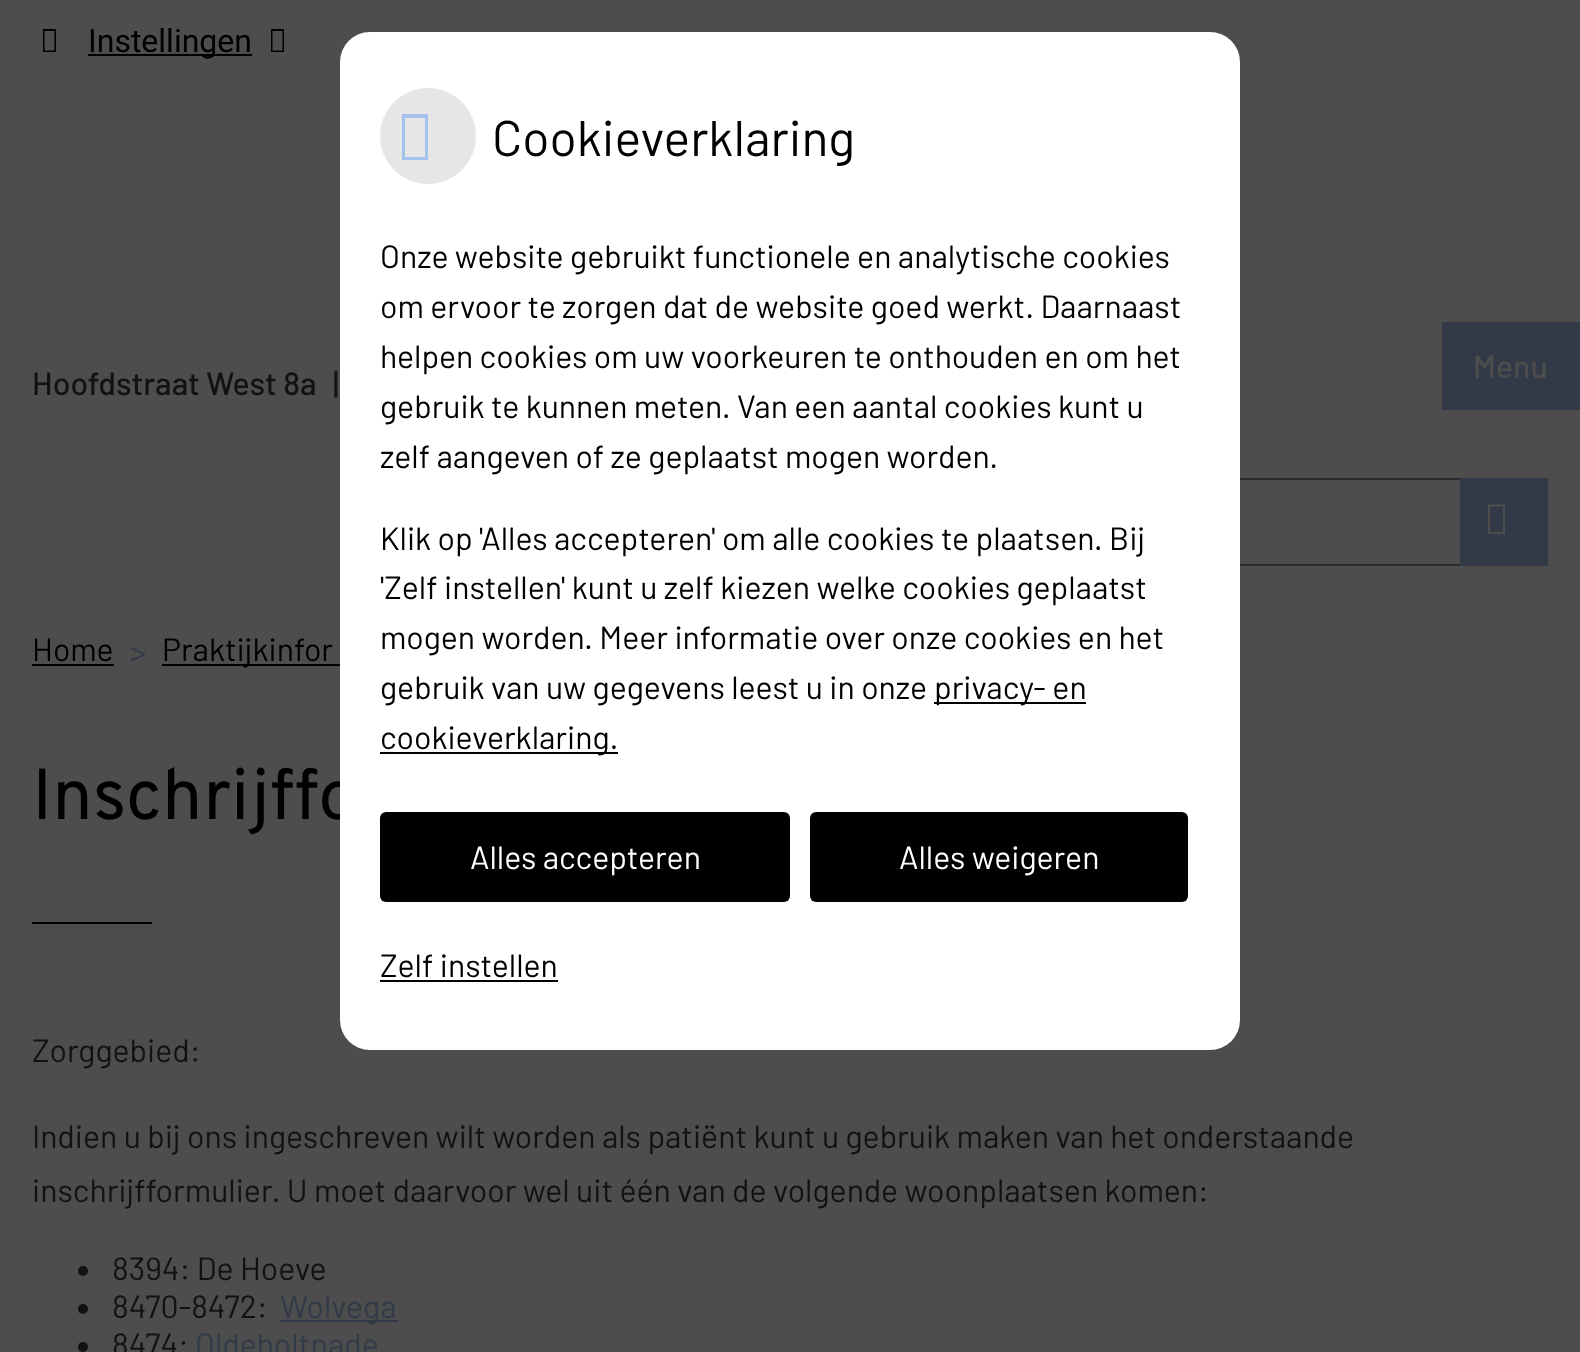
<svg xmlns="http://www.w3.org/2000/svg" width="1580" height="1352">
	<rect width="100%" height="100%" fill="#4D4D4D" />
	<path d="M43 52V29H56V52ZM44.5 50.5H54.5V31H44.5Z" fill="#000000" />
	<rect x="88" y="54" width="164" height="2" fill="#000000" />
	<text x="88" y="52" font-family="Roboto" font-size="32" fill="#000000">Instellingen</text>
	<path d="M271 52V29H284V52ZM272.5 50.5H282.5V31H272.5Z" fill="#000000" />
	<text x="32" y="819" font-family="Overpass" font-size="72" fill="#000000">Inschrijffo</text>
	<rect x="340" y="32" width="900" height="1018" rx="30" fill="#FFFFFF" />
	<circle cx="428" cy="136" r="48" fill="#E6E6E6" />
	<path d="M402 160V114H428V160ZM405 157H425V118H405Z" fill="#A5C2EF" />
	<text x="492" y="156" font-family="Barlow" font-size="50" fill="#000000">Cookieverklaring</text>
	<g font-family="Barlow" font-size="32" fill="#000000">
		<text x="380" y="268">Onze website gebruikt functionele en analytische cookies</text>
		<text x="380" y="318">om ervoor te zorgen dat de website goed werkt. Daarnaast</text>
		<text x="380" y="368">helpen cookies om uw voorkeuren te onthouden en om het</text>
		<text x="380" y="418">gebruik te kunnen meten. Van een aantal cookies kunt u</text>
		<text x="380" y="468">zelf aangeven of ze geplaatst mogen worden.</text>
		<text x="380" y="550">Klik op 'Alles accepteren' om alle cookies te plaatsen. Bij</text>
		<text x="380" y="599">'Zelf instellen' kunt u zelf kiezen welke cookies geplaatst</text>
		<text x="380" y="649">mogen worden. Meer informatie over onze cookies en het</text>
		<text x="380" y="699">gebruik van uw gegevens leest u in onze</text>
	</g>
	<rect x="934" y="702" width="152" height="2" fill="#000000" />
	<text x="934" y="699" font-family="Barlow" font-size="32" fill="#000000">privacy- en</text>
	<rect x="380" y="752" width="238" height="2" fill="#000000" />
	<text x="380" y="749" font-family="Barlow" font-size="32" fill="#000000">cookieverklaring.</text>
	<rect x="380" y="812" width="410" height="90" rx="6" fill="#000000" />
	<text x="470" y="869" font-family="Barlow" font-size="32" fill="#FFFFFF">Alles accepteren</text>
	<rect x="810" y="812" width="378" height="90" rx="6" fill="#000000" />
	<text x="899" y="869" font-family="Barlow" font-size="32" fill="#FFFFFF">Alles weigeren</text>
	<text x="380" y="977" font-family="Barlow" font-size="32" fill="#000000">Zelf instellen</text>
	<rect x="380" y="980" width="178" height="2" fill="#000000" />
	<rect x="1442" y="322" width="138" height="88" fill="#323A48" />
	<text x="1473" y="378" font-family="Barlow" font-size="32" font-weight="500" fill="#4D4D4D">Menu</text>
	<g font-family="Barlow" font-size="32" font-weight="500" fill="#121212">
		<text x="32" y="395">Hoofdstraat West 8a</text>
		<text x="333" y="395">|</text>
	</g>
	<rect x="1240" y="478" width="220" height="2" fill="#2A2B2C" />
	<rect x="1240" y="564" width="220" height="2" fill="#2A2B2C" />
	<rect x="1460" y="478" width="88" height="88" fill="#323A48" />
	<path d="M1488 534V504.5H1505V534ZM1490 532H1503V506.5H1490Z" fill="#4D4D4D" />
	<text x="32" y="661" font-family="Barlow" font-size="32" fill="#000000">Home</text>
	<rect x="32" y="664" width="82" height="2" fill="#000000" />
	<text x="130" y="663" font-family="Barlow" font-size="32" fill="#323A48">&gt;</text>
	<rect x="162" y="664" width="178" height="2" fill="#000000" />
	<text x="162" y="661" font-family="Barlow" font-size="32" fill="#000000">Praktijkinfor</text>
	<rect x="32" y="922" width="120" height="2" fill="#000000" />
	<g font-family="Barlow" font-size="32" fill="#121212">
		<text x="32" y="1062">Zorggebied:</text>
		<text x="32" y="1148">Indien u bij ons ingeschreven wilt worden als patiënt kunt u gebruik maken van het onderstaande</text>
		<text x="32" y="1202">inschrijfformulier. U moet daarvoor wel uit één van de volgende woonplaatsen komen:</text>
	</g>
	<circle cx="83" cy="1271" r="5" fill="#121212" />
	<text x="112" y="1280" font-family="Barlow" font-size="32" fill="#121212">8394: De Hoeve</text>
	<circle cx="83" cy="1309" r="5" fill="#121212" />
	<text x="112" y="1318" font-family="Barlow" font-size="32" fill="#121212">8470-8472:</text>
	<rect x="280" y="1320" width="118" height="2" fill="#323A48" />
	<text x="280" y="1318" font-family="Barlow" font-size="32" fill="#323A48">Wolvega</text>
	<circle cx="83" cy="1347" r="5" fill="#121212" />
	<text x="112" y="1356" font-family="Barlow" font-size="32" fill="#121212">8474:</text>
	<text x="195" y="1356" font-family="Barlow" font-size="32" fill="#323A48">Oldeholtpade</text>
</svg>
